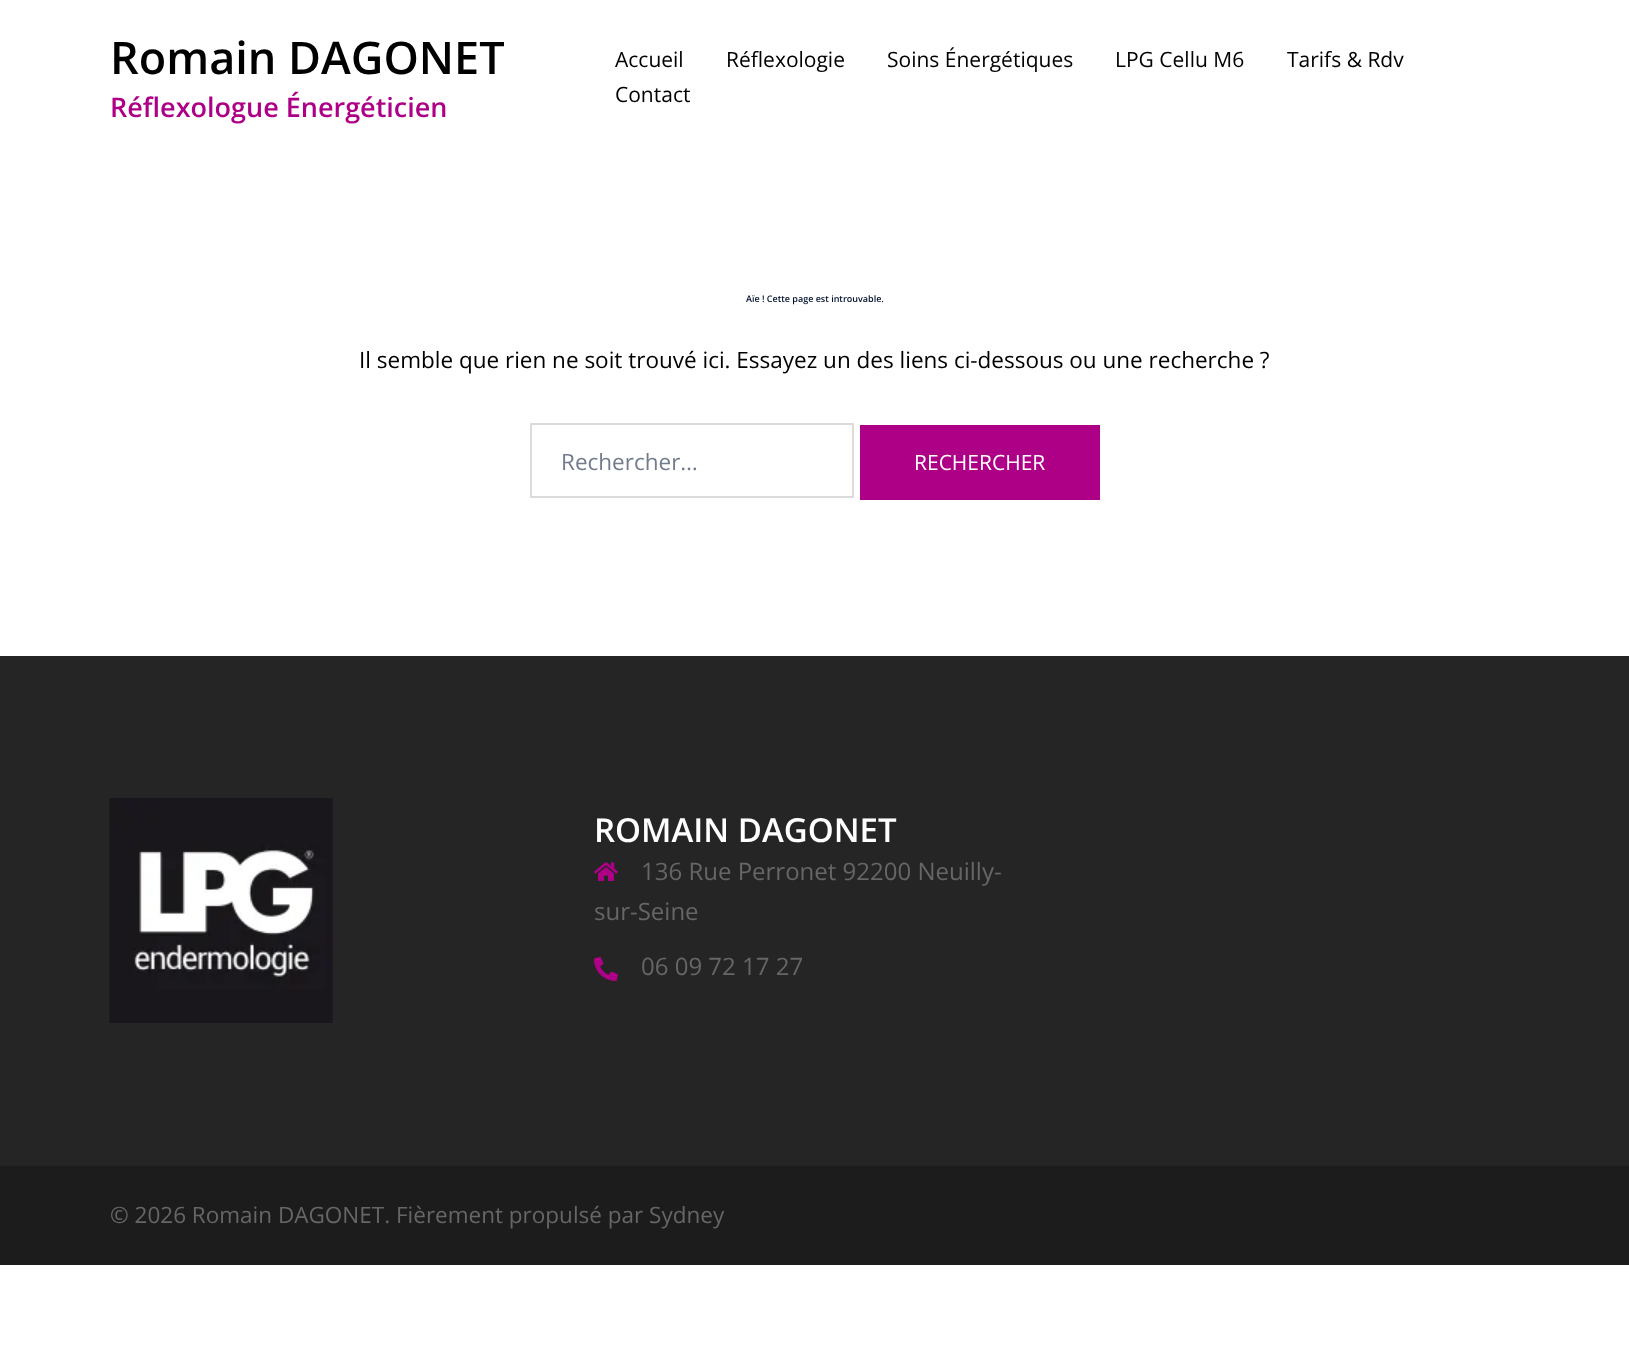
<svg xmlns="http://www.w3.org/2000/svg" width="1629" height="1355">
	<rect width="100%" height="100%" fill="#FFFFFF" />
	<text x="110" y="74" font-family="Open Sans" font-size="45" font-weight="600" fill="#000000">Romain DAGONET</text>
	<text x="110" y="117" font-family="Open Sans" font-size="27" font-weight="600" fill="#AD0087">Réflexologue Énergéticien</text>
	<g font-family="Open Sans" font-size="21" fill="#000000">
		<text x="615" y="67">Accueil</text>
		<text x="726" y="67">Réflexologie</text>
		<text x="887" y="67">Soins Énergétiques</text>
		<text x="1115" y="67">LPG Cellu M6</text>
		<text x="1287" y="67">Tarifs &amp; Rdv</text>
		<text x="615" y="102">Contact</text>
	</g>
	<text x="746" y="302" font-family="Open Sans" font-size="9" font-weight="600" fill="#00102E">Aïe ! Cette page est introuvable.</text>
	<text x="359" y="368" font-family="Open Sans" font-size="22.5" fill="#000000">Il semble que rien ne soit trouvé ici. Essayez un des liens ci-dessous ou une recherche ?</text>
	<rect x="531" y="424" width="322" height="73" fill="none" stroke="#DBDBDB" stroke-width="2" />
	<text x="561" y="470" font-family="Open Sans" font-size="22.5" fill="#737C8C">Rechercher…</text>
	<rect x="860" y="425" width="240" height="75" fill="#AD0087" />
	<text x="914" y="470" font-family="Open Sans" font-size="21" fill="#FFFFFF">RECHERCHER</text>
	<rect x="0" y="656" width="1629" height="510" fill="#252525" />
	<image x="109" y="798" width="225" height="225" href="assets/img1.png" />
	<text x="594" y="842" font-family="Open Sans" font-size="33" font-weight="600" fill="#FFFFFF">ROMAIN DAGONET</text>
	<image x="594" y="862" width="24" height="19" href="assets/img2.png" />
	<g font-family="Open Sans" font-size="24" fill="#666666">
		<text x="641" y="880">136 Rue Perronet 92200 Neuilly-</text>
		<text x="594" y="920">sur-Seine</text>
	</g>
	<image x="594" y="957" width="24" height="24" href="assets/img3.png" />
	<text x="641" y="975" font-family="Open Sans" font-size="24" fill="#666666">06 09 72 17 27</text>
	<rect x="0" y="1166" width="1629" height="99" fill="#1C1C1C" />
	<text x="110" y="1223" font-family="Open Sans" font-size="22.5" fill="#666666">© 2026 Romain DAGONET. Fièrement propulsé par Sydney</text>
</svg>
